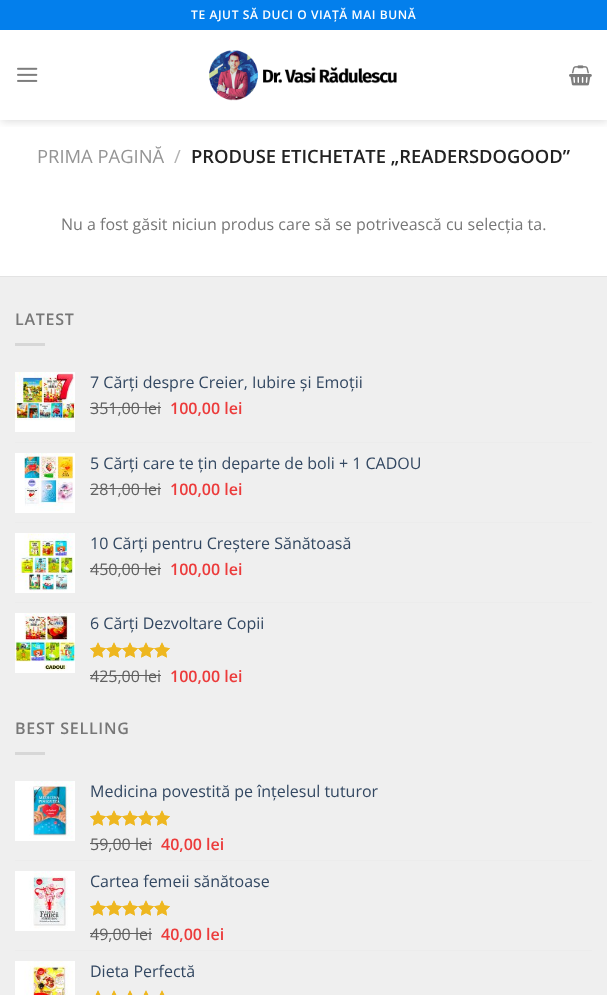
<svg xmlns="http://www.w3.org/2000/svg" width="607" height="995">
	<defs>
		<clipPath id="clip1"><rect x="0" y="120" width="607" height="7" /></clipPath>
	</defs>
	<rect width="100%" height="100%" fill="#FFFFFF" />
	<g clip-path="url(#clip1)">
		<rect x="1" y="1" width="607" height="120" fill="#000000" fill-opacity="0.15" filter="blur(5px)" />
	</g>
	<rect x="0" y="0" width="607" height="30" fill="#037FEC" />
	<text x="191" y="19" font-family="Open Sans" font-size="12" font-weight="600" letter-spacing="0.6" fill="#FFFFFF">TE AJUT SĂ DUCI O VIAȚĂ MAI BUNĂ</text>
	<image x="17" y="67" width="21" height="15" href="assets/img1.png" />
	<image x="209" y="50" width="188" height="51" href="assets/img2.png" />
	<image x="569" y="65" width="23" height="21" href="assets/img3.png" />
	<text x="37" y="163" font-family="Open Sans" font-size="18.4" fill="#949494">PRIMA PAGINĂ</text>
	<text x="174" y="163" font-family="Open Sans" font-size="18.4" fill="#B2B2B2">/</text>
	<text x="191" y="163" font-family="Open Sans" font-size="18.4" font-weight="600" fill="#222222">PRODUSE ETICHETATE „READERSDOGOOD”</text>
	<text x="61" y="230" font-family="Open Sans" font-size="16" fill="#777777">Nu a fost găsit niciun produs care să se potrivească cu selecția ta.</text>
	<rect x="0" y="277" width="607" height="718" fill="#EFEFEF" />
	<rect x="0" y="276" width="607" height="1" fill="#E3E3E3" />
	<text x="15" y="325" font-family="Open Sans" font-size="16" font-weight="600" letter-spacing="0.75" fill="#777777">LATEST</text>
	<rect x="15" y="343" width="30" height="3" fill="#D7D7D7" />
	<image x="15" y="372" width="60" height="60" href="assets/img4.png" />
	<text x="90" y="388" font-family="Open Sans" font-size="16" fill="#334862">7 Cărți despre Creier, Iubire și Emoții</text>
	<text x="90" y="414" font-family="Open Sans" font-size="16" fill="#606060">351,00 lei</text>
	<rect x="90" y="407" width="71" height="1" fill="#606060" />
	<text x="170" y="414" font-family="Open Sans" font-size="16" font-weight="600" fill="#EC3B3B">100,00 lei</text>
	<rect x="15" y="442" width="577" height="1" fill="#ECECEC" />
	<image x="15" y="453" width="60" height="60" href="assets/img5.png" />
	<text x="90" y="469" font-family="Open Sans" font-size="16" fill="#334862">5 Cărți care te țin departe de boli + 1 CADOU</text>
	<text x="90" y="495" font-family="Open Sans" font-size="16" fill="#606060">281,00 lei</text>
	<rect x="90" y="488" width="71" height="1" fill="#606060" />
	<text x="170" y="495" font-family="Open Sans" font-size="16" font-weight="600" fill="#EC3B3B">100,00 lei</text>
	<rect x="15" y="522" width="577" height="1" fill="#ECECEC" />
	<image x="15" y="533" width="60" height="60" href="assets/img6.png" />
	<text x="90" y="549" font-family="Open Sans" font-size="16" fill="#334862">10 Cărți pentru Creștere Sănătoasă</text>
	<text x="90" y="575" font-family="Open Sans" font-size="16" fill="#606060">450,00 lei</text>
	<rect x="90" y="568" width="71" height="1" fill="#606060" />
	<text x="170" y="575" font-family="Open Sans" font-size="16" font-weight="600" fill="#EC3B3B">100,00 lei</text>
	<rect x="15" y="602" width="577" height="1" fill="#ECECEC" />
	<image x="15" y="613" width="60" height="60" href="assets/img7.png" />
	<text x="90" y="629" font-family="Open Sans" font-size="16" fill="#334862">6 Cărți Dezvoltare Copii</text>
	<image x="90" y="642" width="80" height="16" href="assets/img8.png" />
	<image x="90" y="642" width="80" height="16" href="assets/img9.png" />
	<text x="90" y="682" font-family="Open Sans" font-size="16" fill="#606060">425,00 lei</text>
	<rect x="90" y="675" width="71" height="1" fill="#606060" />
	<text x="170" y="682" font-family="Open Sans" font-size="16" font-weight="600" fill="#EC3B3B">100,00 lei</text>
	<text x="15" y="734" font-family="Open Sans" font-size="16" font-weight="600" letter-spacing="0.75" fill="#777777">BEST SELLING</text>
	<rect x="15" y="752" width="30" height="3" fill="#D7D7D7" />
	<image x="15" y="781" width="60" height="60" href="assets/img10.png" />
	<text x="90" y="797" font-family="Open Sans" font-size="16" fill="#334862">Medicina povestită pe înțelesul tuturor</text>
	<image x="90" y="810" width="80" height="16" href="assets/img8.png" />
	<image x="90" y="810" width="80" height="16" href="assets/img9.png" />
	<text x="90" y="850" font-family="Open Sans" font-size="16" fill="#606060">59,00 lei</text>
	<rect x="90" y="843" width="62" height="1" fill="#606060" />
	<text x="161" y="850" font-family="Open Sans" font-size="16" font-weight="600" fill="#EC3B3B">40,00 lei</text>
	<rect x="15" y="860" width="577" height="1" fill="#ECECEC" />
	<image x="15" y="871" width="60" height="60" href="assets/img11.png" />
	<text x="90" y="887" font-family="Open Sans" font-size="16" fill="#334862">Cartea femeii sănătoase</text>
	<image x="90" y="900" width="80" height="16" href="assets/img8.png" />
	<image x="90" y="900" width="80" height="16" href="assets/img9.png" />
	<text x="90" y="940" font-family="Open Sans" font-size="16" fill="#606060">49,00 lei</text>
	<rect x="90" y="933" width="62" height="1" fill="#606060" />
	<text x="161" y="940" font-family="Open Sans" font-size="16" font-weight="600" fill="#EC3B3B">40,00 lei</text>
	<rect x="15" y="950" width="577" height="1" fill="#ECECEC" />
	<image x="15" y="961" width="60" height="34" href="assets/img12.png" />
	<text x="90" y="977" font-family="Open Sans" font-size="16" fill="#334862">Dieta Perfectă</text>
	<image x="95" y="990" width="70" height="5" href="assets/img13.png" />
	<image x="95" y="990" width="70" height="5" href="assets/img14.png" />
</svg>
